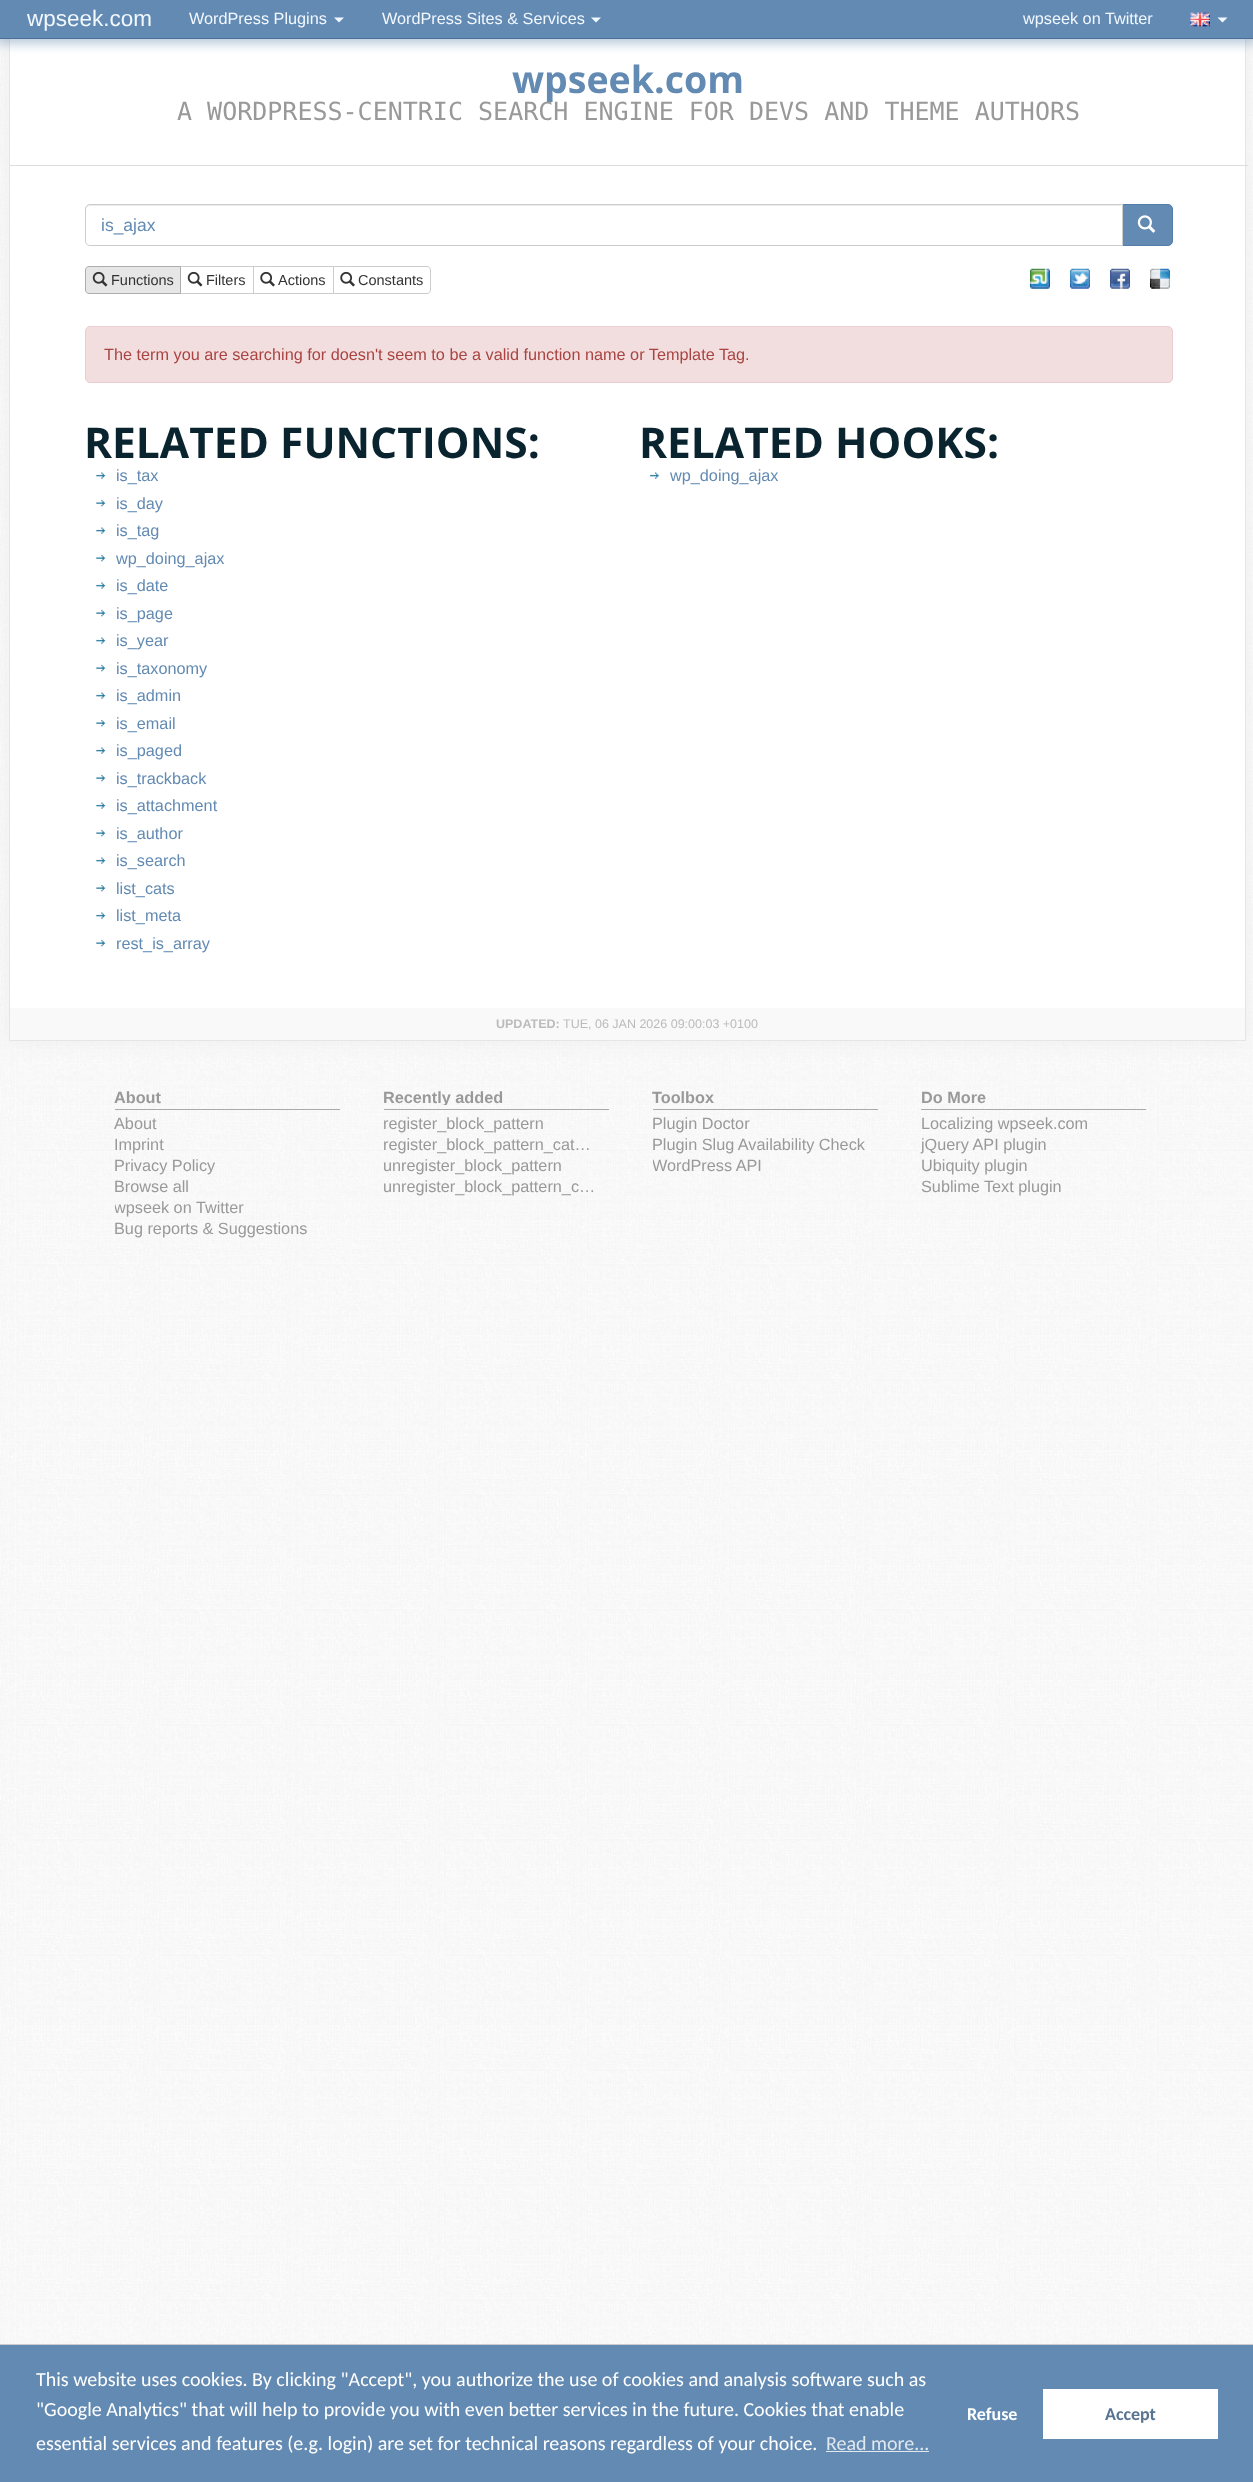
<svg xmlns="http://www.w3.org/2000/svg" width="1253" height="2482">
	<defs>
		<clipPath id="clip1"><rect x="115" y="1199" width="215" height="21" /></clipPath>
		<clipPath id="clip2"><rect x="384" y="1089" width="215" height="16" /></clipPath>
		<clipPath id="clip3"><rect x="653" y="1156" width="215" height="22" /></clipPath>
	</defs>
	<rect width="100%" height="100%" fill="#FFFFFF" />
	<image x="0" y="1265" width="1253" height="1079" href="assets/img1.png" />
	<image x="0" y="39" width="1253" height="1226" href="assets/img2.png" />
	<rect x="9" y="0" width="1237" height="1041" fill="#EEEEEE" filter="blur(9.5px)" />
	<rect x="10" y="39" width="1235" height="969" fill="#FFFFFF" />
	<rect x="1245" y="39" width="1" height="1002" fill="#E5E5E5" />
	<rect x="9" y="1040" width="1237" height="1" fill="#E5E5E5" />
	<rect x="9" y="39" width="1" height="1002" fill="#E5E5E5" />
	<rect x="-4" y="-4" width="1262" height="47" fill="#628AB2" fill-opacity="0.5" filter="blur(6px)" />
	<rect x="0" y="0" width="1253" height="38" fill="#628AB2" />
	<rect x="0" y="38" width="1253" height="1" fill="#4A7097" />
	<text x="27" y="26" font-family="Liberation Sans" font-size="22.5" fill="#F2F8FF">wpseek.com</text>
	<text x="189" y="24" font-family="Liberation Sans" font-size="16.25" fill="#F2F8FF">WordPress Plugins</text>
	<path d="M334 17.5H344L339 22.5Z" fill="#F2F8FF" />
	<text x="382" y="24" font-family="Liberation Sans" font-size="16.25" fill="#F2F8FF">WordPress Sites &amp; Services</text>
	<path d="M591 17.5H601L596 22.5Z" fill="#F2F8FF" />
	<text x="1023" y="24" font-family="Liberation Sans" font-size="16.25" fill="#F2F8FF">wpseek on Twitter</text>
	<image x="1189" y="12" width="21" height="15" href="assets/img3.png" />
	<path d="M1217.5 17.5H1227.5L1222.5 22.5Z" fill="#F2F8FF" />
	<rect x="10" y="165" width="1238" height="1" fill="#DDDDDD" />
	<text x="512" y="93" font-family="Open Sans" font-size="37.5" font-weight="700" fill="#628AB2">wpseek.com</text>
	<text x="177" y="120" font-family="DejaVu Sans Mono" font-size="25" fill="#999999">A WORDPRESS-CENTRIC SEARCH ENGINE FOR DEVS AND THEME AUTHORS</text>
	<path d="M1121.5 204.5H1168C1170.5 204.5 1172.5 206.5 1172.5 209V241C1172.5 243.5 1170.5 245.5 1168 245.5H1121.5Z" fill="#628AB2" stroke="#527DA8" />
	<path d="M90 204H1123V246H90C87 246 85 244 85 241V209C85 206 87 204 90 204Z" fill="#FFFFFF" />
	<path d="M90 206H1121V205H90C87 205 86 207 86 210C86 208 88 206 90 206Z" fill="#ECECEC" />
	<path d="M90 204.5H1122.5V245.5H90C87.5 245.5 85.5 243.5 85.5 241V209C85.5 206.5 87.5 204.5 90 204.5Z" fill="none" stroke="#CCCCCC" />
	<text x="101" y="231" font-family="Liberation Sans" font-size="17.5" fill="#628AB2">is_ajax</text>
	<image x="1137" y="215" width="19" height="18" href="assets/img4.png" />
	<rect x="180.5" y="266.5" width="73" height="27" fill="none" stroke="#CCCCCC" />
	<path d="M89 266.5H180.5V293.5H89C87 293.5 85.5 292 85.5 290V270C85.5 268 87 266.5 89 266.5Z" fill="#E6E6E6" stroke="#ADADAD" />
	<image x="92" y="271" width="16" height="16" href="assets/img5.png" />
	<text x="111" y="285" font-family="Liberation Sans" font-size="14.5" fill="#333333">Functions</text>
	<image x="187" y="271" width="16" height="16" href="assets/img6.png" />
	<text x="206" y="285" font-family="Liberation Sans" font-size="14.5" fill="#333333">Filters</text>
	<rect x="253.5" y="266.5" width="80" height="27" fill="none" stroke="#CCCCCC" />
	<image x="260" y="271" width="15" height="16" href="assets/img7.png" />
	<text x="278" y="285" font-family="Liberation Sans" font-size="14.5" fill="#333333">Actions</text>
	<path d="M333.5 266.5H427C429 266.5 430.5 268 430.5 270V290C430.5 292 429 293.5 427 293.5H333.5Z" fill="#FFFFFF" stroke="#CCCCCC" />
	<image x="340" y="271" width="15" height="16" href="assets/img7.png" />
	<text x="358" y="285" font-family="Liberation Sans" font-size="14.5" fill="#333333">Constants</text>
	<image x="1030" y="268" width="20" height="21" href="assets/img8.png" />
	<image x="1070" y="268" width="20" height="21" href="assets/img9.png" />
	<image x="1110" y="268" width="20" height="21" href="assets/img10.png" />
	<image x="1150" y="268" width="20" height="21" href="assets/img11.png" />
	<rect x="85.5" y="326.5" width="1087" height="56" rx="4.5" fill="#F2DEDE" stroke="#EBCCD1" />
	<text x="104" y="360" font-family="Liberation Sans" font-size="16.25" fill="#A94442">The term you are searching for doesn't seem to be a valid function name or Template Tag.</text>
	<text x="84" y="458" font-family="Open Sans" font-size="42.5" font-weight="700" fill="#0A242F">RELATED FUNCTIONS:</text>
	<image x="96" y="472" width="10" height="7" href="assets/img12.png" />
	<text x="116" y="481" font-family="Liberation Sans" font-size="16.25" fill="#628AB2">is_tax</text>
	<image x="96" y="499" width="10" height="8" href="assets/img13.png" />
	<text x="116" y="509" font-family="Liberation Sans" font-size="16.25" fill="#628AB2">is_day</text>
	<image x="96" y="527" width="10" height="7" href="assets/img12.png" />
	<text x="116" y="536" font-family="Liberation Sans" font-size="16.25" fill="#628AB2">is_tag</text>
	<image x="96" y="554" width="10" height="8" href="assets/img13.png" />
	<text x="116" y="564" font-family="Liberation Sans" font-size="16.25" fill="#628AB2">wp_doing_ajax</text>
	<image x="96" y="582" width="10" height="7" href="assets/img12.png" />
	<text x="116" y="591" font-family="Liberation Sans" font-size="16.25" fill="#628AB2">is_date</text>
	<image x="96" y="609" width="10" height="8" href="assets/img13.png" />
	<text x="116" y="619" font-family="Liberation Sans" font-size="16.25" fill="#628AB2">is_page</text>
	<image x="96" y="637" width="10" height="7" href="assets/img12.png" />
	<text x="116" y="646" font-family="Liberation Sans" font-size="16.25" fill="#628AB2">is_year</text>
	<image x="96" y="664" width="10" height="8" href="assets/img13.png" />
	<text x="116" y="674" font-family="Liberation Sans" font-size="16.25" fill="#628AB2">is_taxonomy</text>
	<image x="96" y="692" width="10" height="7" href="assets/img12.png" />
	<text x="116" y="701" font-family="Liberation Sans" font-size="16.25" fill="#628AB2">is_admin</text>
	<image x="96" y="719" width="10" height="8" href="assets/img13.png" />
	<text x="116" y="729" font-family="Liberation Sans" font-size="16.25" fill="#628AB2">is_email</text>
	<image x="96" y="747" width="10" height="7" href="assets/img12.png" />
	<text x="116" y="756" font-family="Liberation Sans" font-size="16.25" fill="#628AB2">is_paged</text>
	<image x="96" y="774" width="10" height="8" href="assets/img13.png" />
	<text x="116" y="784" font-family="Liberation Sans" font-size="16.25" fill="#628AB2">is_trackback</text>
	<image x="96" y="802" width="10" height="7" href="assets/img12.png" />
	<text x="116" y="811" font-family="Liberation Sans" font-size="16.25" fill="#628AB2">is_attachment</text>
	<image x="96" y="829" width="10" height="8" href="assets/img13.png" />
	<text x="116" y="839" font-family="Liberation Sans" font-size="16.25" fill="#628AB2">is_author</text>
	<image x="96" y="857" width="10" height="7" href="assets/img12.png" />
	<text x="116" y="866" font-family="Liberation Sans" font-size="16.25" fill="#628AB2">is_search</text>
	<image x="96" y="884" width="10" height="8" href="assets/img13.png" />
	<text x="116" y="894" font-family="Liberation Sans" font-size="16.25" fill="#628AB2">list_cats</text>
	<image x="96" y="912" width="10" height="7" href="assets/img12.png" />
	<text x="116" y="921" font-family="Liberation Sans" font-size="16.25" fill="#628AB2">list_meta</text>
	<image x="96" y="939" width="10" height="8" href="assets/img13.png" />
	<text x="116" y="949" font-family="Liberation Sans" font-size="16.25" fill="#628AB2">rest_is_array</text>
	<text x="639" y="458" font-family="Open Sans" font-size="42.5" font-weight="700" fill="#0A242F">RELATED HOOKS:</text>
	<image x="649" y="472" width="10" height="7" href="assets/img14.png" />
	<text x="670" y="481" font-family="Liberation Sans" font-size="16.25" fill="#628AB2">wp_doing_ajax</text>
	<rect x="10" y="1008" width="1235" height="32" fill="#F9F9F9" />
	<text x="496" y="1028" font-family="Liberation Sans" font-size="12.5" font-weight="700" fill="#BBBBBB">UPDATED:</text>
	<text x="563" y="1028" font-family="Liberation Sans" font-size="12.5" fill="#BBBBBB">TUE, 06 JAN 2026 09:00:03 +0100</text>
	<rect x="115" y="1109" width="225" height="1" fill="#AAAAAA" />
	<text x="114" y="1103" font-family="Liberation Sans" font-size="16.25" font-weight="700" fill="#999999">About</text>
	<g font-family="Liberation Sans" font-size="16.25" fill="#999999">
		<text x="114" y="1129">About</text>
		<text x="114" y="1150">Imprint</text>
		<text x="114" y="1171">Privacy Policy</text>
		<text x="114" y="1192">Browse all</text>
	</g>
	<g clip-path="url(#clip1)">
		<text x="114" y="1213" font-family="Liberation Sans" font-size="16.25" fill="#999999">wpseek on Twitter</text>
	</g>
	<text x="114" y="1234" font-family="Liberation Sans" font-size="16.25" fill="#999999">Bug reports &amp; Suggestions</text>
	<rect x="384" y="1109" width="225" height="1" fill="#AAAAAA" />
	<g clip-path="url(#clip2)">
		<text x="383" y="1103" font-family="Liberation Sans" font-size="16.25" font-weight="700" fill="#999999">Recently added</text>
	</g>
	<g font-family="Liberation Sans" font-size="16.25" fill="#999999">
		<text x="383" y="1129">register_block_pattern</text>
		<text x="383" y="1150">register_block_pattern_cat…</text>
		<text x="383" y="1171">unregister_block_pattern</text>
		<text x="383" y="1192">unregister_block_pattern_c…</text>
	</g>
	<rect x="653" y="1109" width="225" height="1" fill="#AAAAAA" />
	<text x="652" y="1103" font-family="Liberation Sans" font-size="16.25" font-weight="700" fill="#999999">Toolbox</text>
	<g font-family="Liberation Sans" font-size="16.25" fill="#999999">
		<text x="652" y="1129">Plugin Doctor</text>
		<text x="652" y="1150">Plugin Slug Availability Check</text>
	</g>
	<g clip-path="url(#clip3)">
		<text x="652" y="1171" font-family="Liberation Sans" font-size="16.25" fill="#999999">WordPress API</text>
	</g>
	<rect x="921" y="1109" width="225" height="1" fill="#AAAAAA" />
	<text x="921" y="1103" font-family="Liberation Sans" font-size="16.25" font-weight="700" fill="#999999">Do More</text>
	<g font-family="Liberation Sans" font-size="16.25" fill="#999999">
		<text x="921" y="1129">Localizing wpseek.com</text>
		<text x="921" y="1150">jQuery API plugin</text>
		<text x="921" y="1171">Ubiquity plugin</text>
		<text x="921" y="1192">Sublime Text plugin</text>
	</g>
	<rect x="0" y="2345" width="1253" height="137" fill="#628AB2" />
	<rect x="0" y="2344" width="1253" height="1" fill="#CCCCCC" />
	<g font-family="Carlito" font-size="20" fill="#FFFFFF">
		<text x="36" y="2386">This website uses cookies. By clicking "Accept", you authorize the use of cookies and analysis software such as</text>
		<text x="36" y="2416">"Google Analytics" that will help to provide you with even better services in the future. Cookies that enable</text>
		<text x="36" y="2450">essential services and features (e.g. login) are set for technical reasons regardless of your choice.</text>
	</g>
	<text x="826" y="2450" font-family="Carlito" font-size="20" fill="#E0E8F0">Read more...</text>
	<rect x="826" y="2451" width="103" height="1" fill="#E0E8F0" />
	<text x="967" y="2420" font-family="Carlito" font-size="18" font-weight="700" fill="#FFFFFF">Refuse</text>
	<rect x="1043" y="2389" width="175" height="50" fill="#FFFFFF" />
	<text x="1105" y="2420" font-family="Carlito" font-size="18" font-weight="700" fill="#577491">Accept</text>
</svg>
